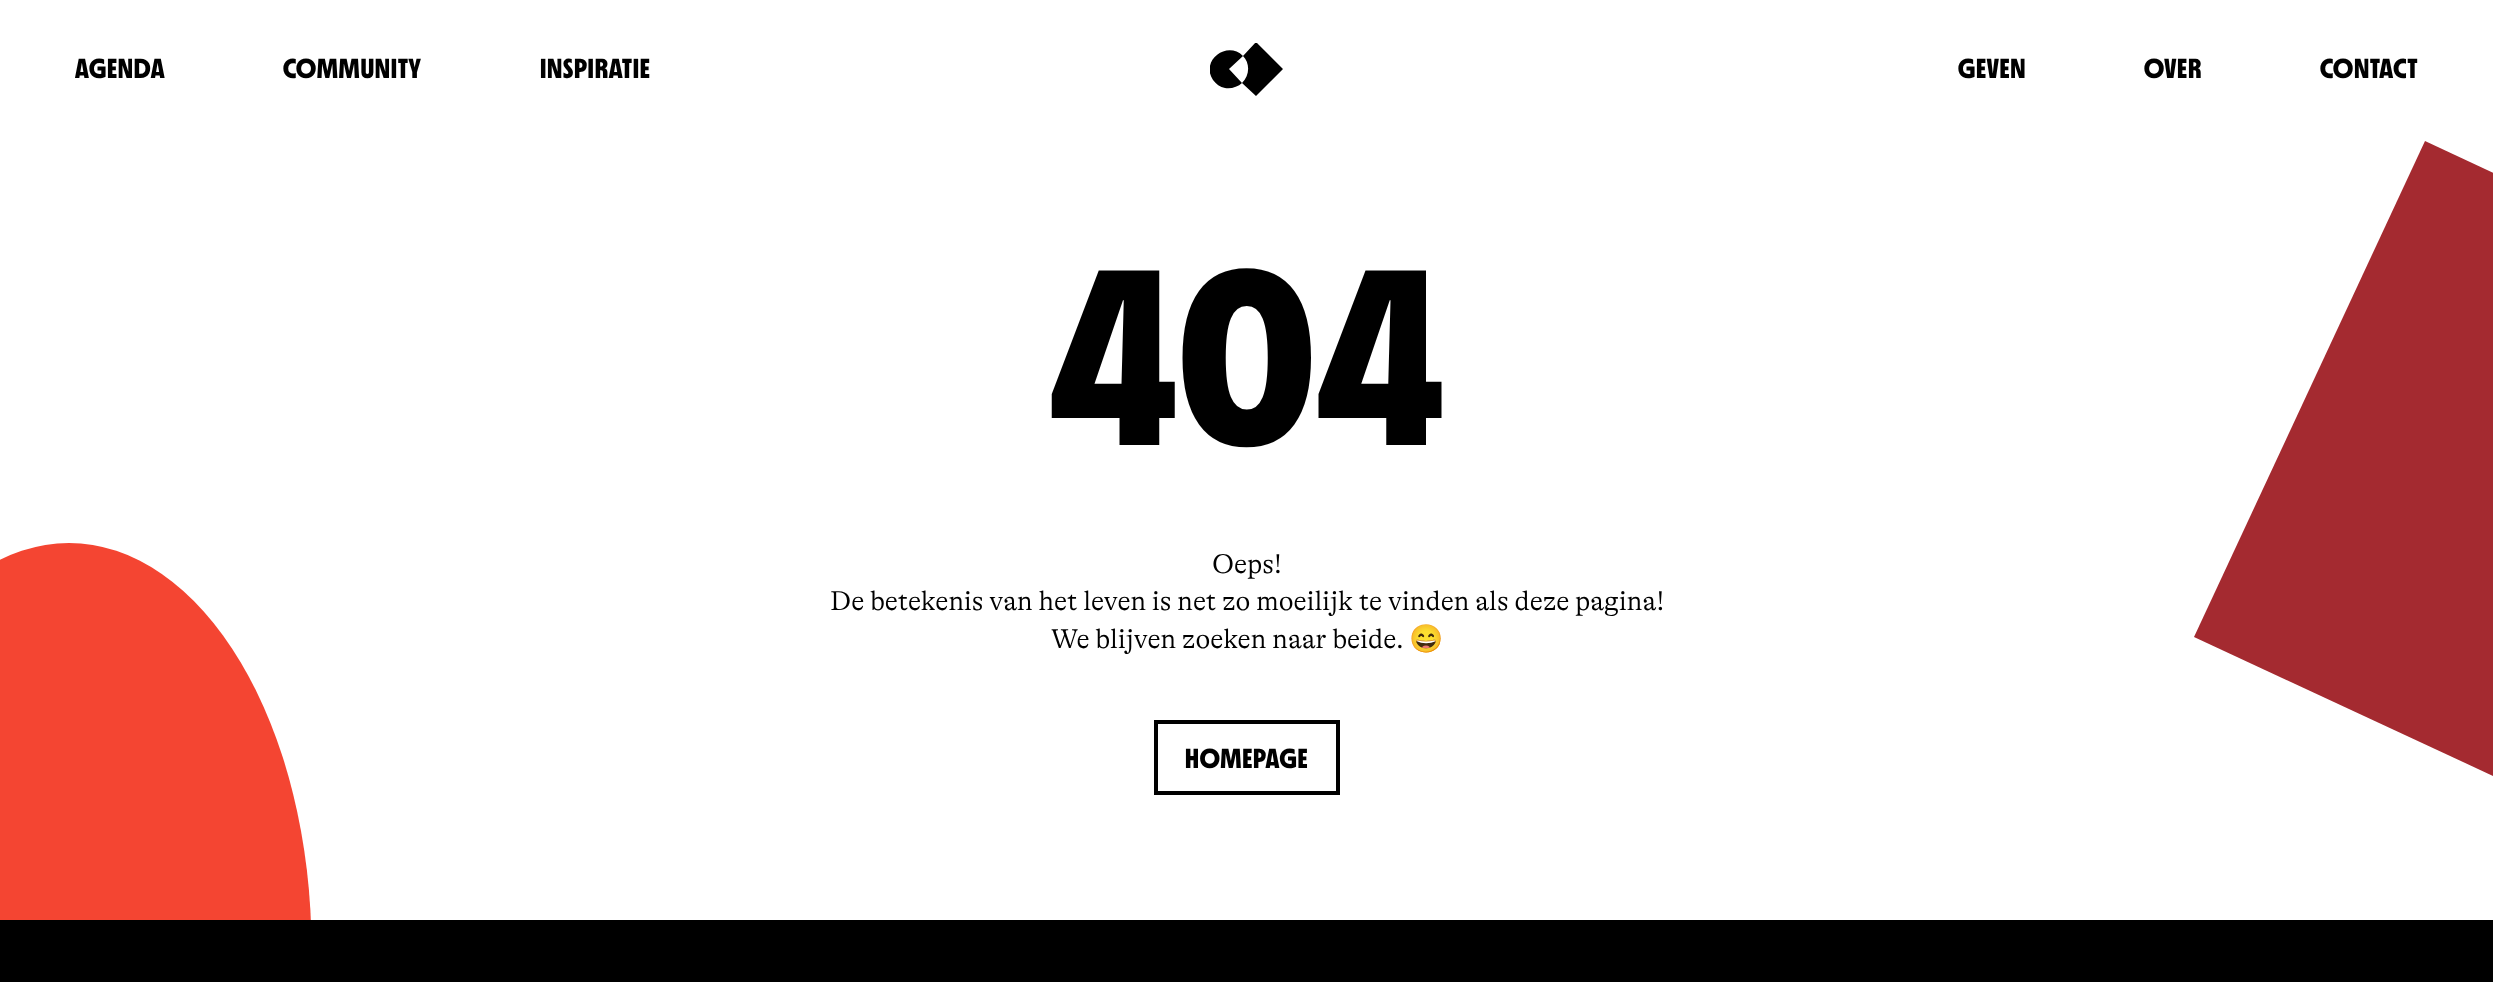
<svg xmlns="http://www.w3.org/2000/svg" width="2493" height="982">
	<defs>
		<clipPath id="clip1"><rect x="1210" y="43" width="74" height="53" /></clipPath>
	</defs>
	<rect width="100%" height="100%" fill="#FFFFFF" />
	<g font-family="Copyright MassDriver" font-size="27.5" font-weight="700" letter-spacing="0.75" fill="#000000">
		<text x="75" y="78">AGENDA</text>
		<text x="283" y="78">COMMUNITY</text>
		<text x="540" y="78">INSPIRATIE</text>
	</g>
	<g clip-path="url(#clip1)">
		<path d="M1243 56L1229 69L1242 83C1238 87 1231 89 1225 88C1220 87 1216 84 1213 80C1200 61 1227 40 1243 56ZM1243 56L1256 42L1283 69L1256 96L1242 83C1250 75 1250 63 1243 56Z" fill="#000000" fill-rule="evenodd" />
	</g>
	<g font-family="Copyright MassDriver" font-size="27.5" font-weight="700" letter-spacing="0.75" fill="#000000">
		<text x="1958" y="78">GEVEN</text>
		<text x="2144" y="78">OVER</text>
		<text x="2320" y="78">CONTACT</text>
	</g>
	<text x="1047" y="445" font-family="Copyright MassDriver" font-size="250" font-weight="700" fill="#000000">404</text>
	<path d="M2194 637L2425 141L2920 372L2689 867Z" fill="#A42A30" />
	<ellipse cx="69" cy="949" rx="242.5" ry="406" fill="#F44532" />
	<g font-family="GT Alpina" font-size="27.5" font-weight="300" fill="#000000">
		<text x="1212" y="573">Oeps!</text>
		<text x="830" y="610">De betekenis van het leven is net zo moeilijk te vinden als deze pagina!</text>
		<text x="1051" y="648">We blijven zoeken naar beide.</text>
	</g>
	<text x="1409" y="648" font-family="Noto Color Emoji" font-size="27.5" fill="#000000">😄</text>
	<rect x="1156" y="722" width="182" height="71" fill="none" stroke="#000000" stroke-width="4" />
	<text x="1185" y="768" font-family="Copyright MassDriver" font-size="27.5" font-weight="700" letter-spacing="0.75" fill="#000000">HOMEPAGE</text>
	<rect x="0" y="920" width="2493" height="62" fill="#000000" />
</svg>
